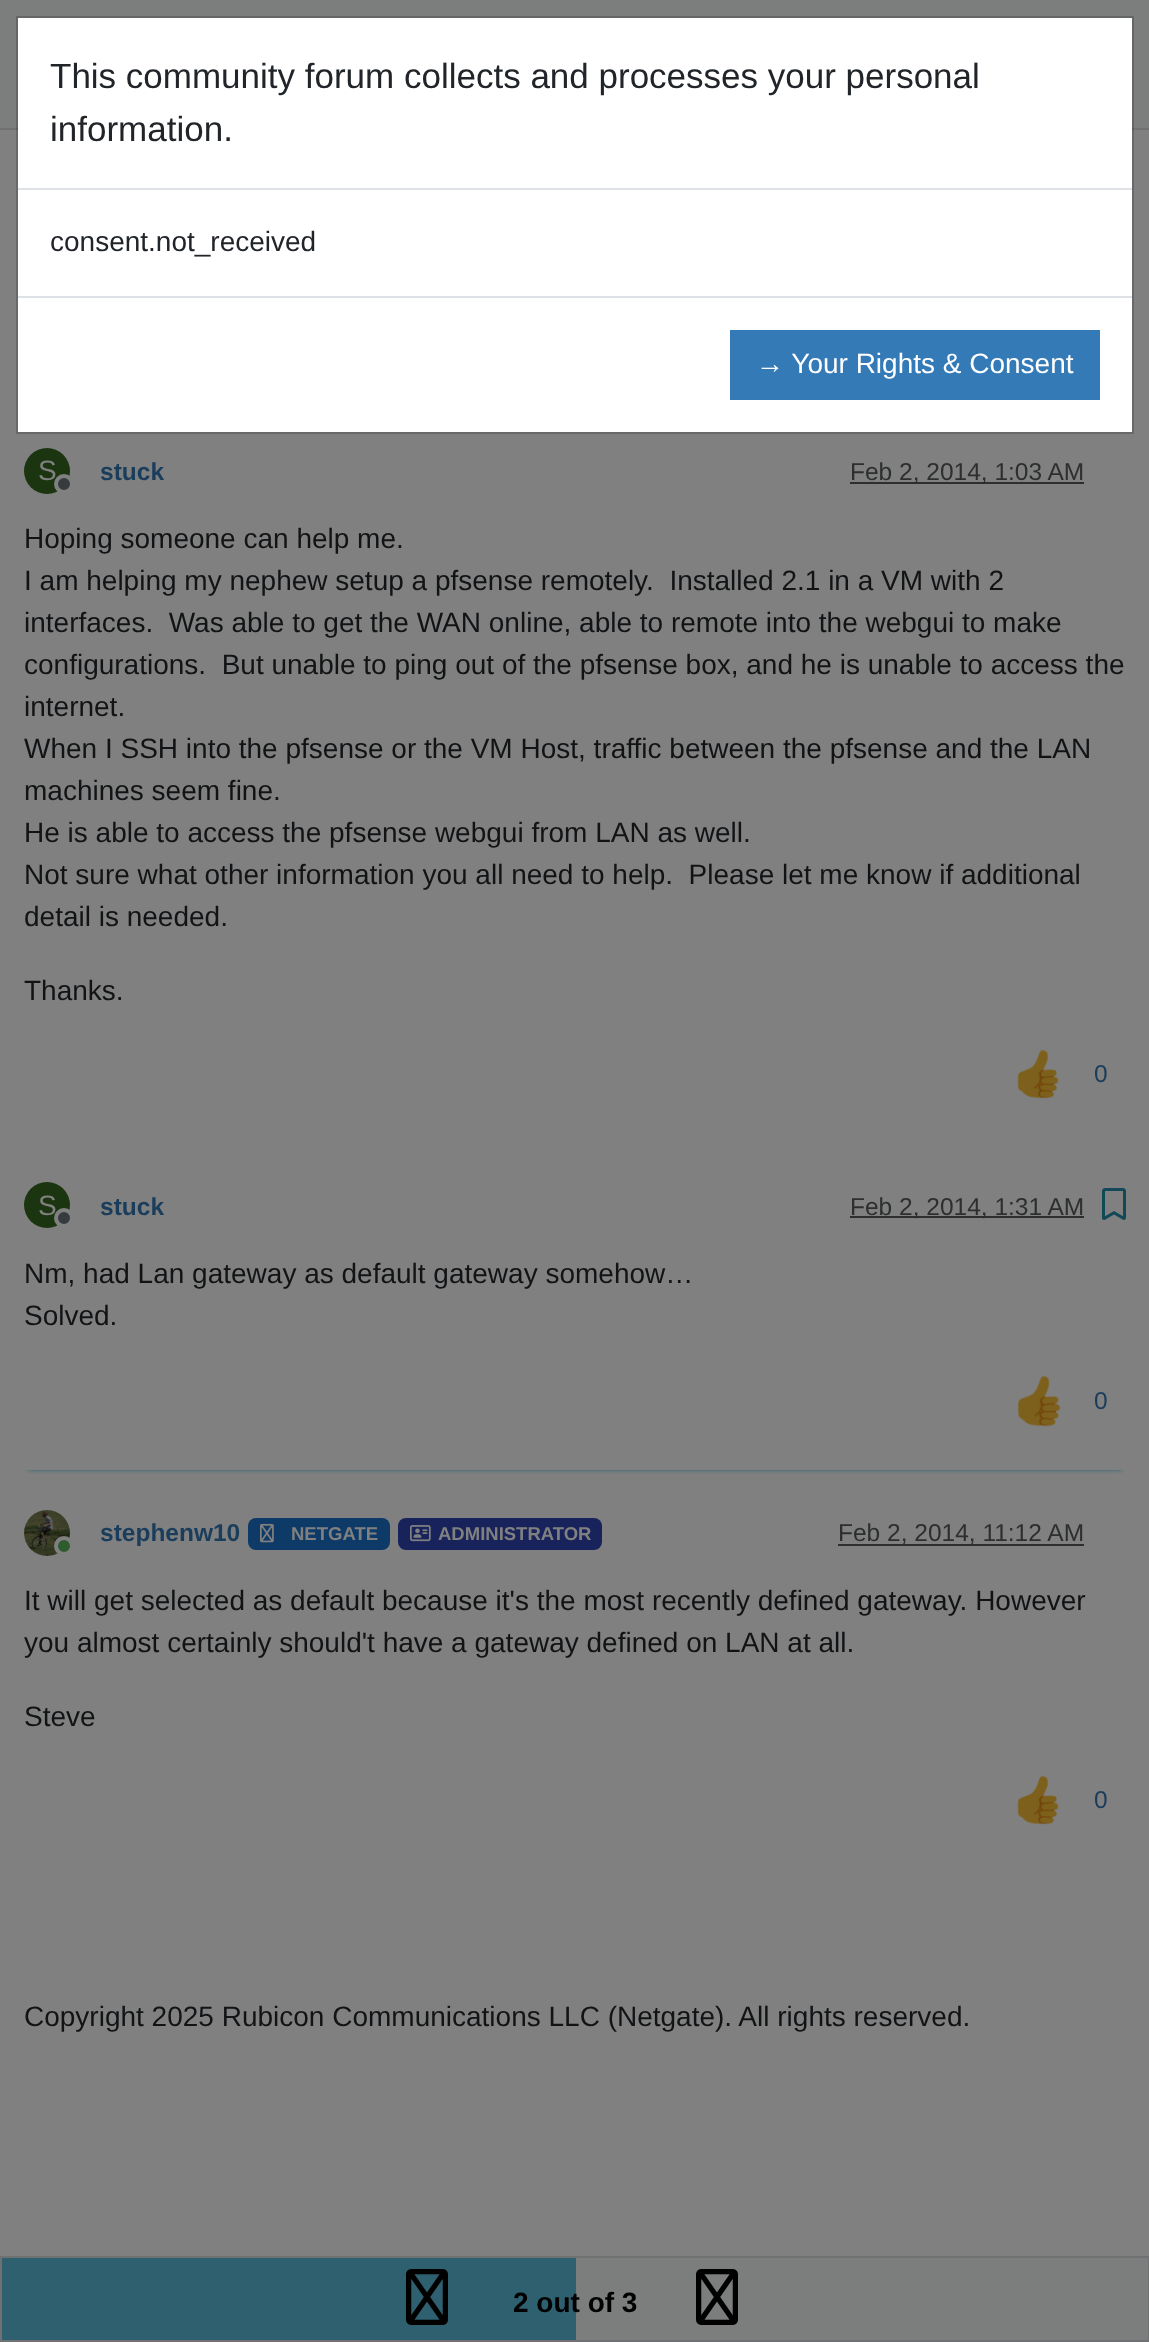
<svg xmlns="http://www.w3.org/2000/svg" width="1149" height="2342">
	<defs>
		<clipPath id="clip1"><rect x="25" y="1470" width="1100" height="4" /></clipPath>
	</defs>
	<rect width="100%" height="100%" fill="#808080" />
	<rect x="0" y="0" width="1149" height="128" fill="#7C7D7D" />
	<rect x="0" y="128" width="1149" height="2" fill="#6F7173" />
	<rect x="18" y="18" width="1114" height="414" fill="#FFFFFF" />
	<rect x="17" y="17" width="1116" height="416" fill="none" stroke="#000000" stroke-opacity="0.18" stroke-width="2" />
	<rect x="18" y="188" width="1114" height="2" fill="#DEE2E6" />
	<g font-family="Liberation Sans" font-size="35" fill="#212529">
		<text x="50" y="88">This community forum collects and processes your personal</text>
		<text x="50" y="141">information.</text>
	</g>
	<text x="50" y="251" font-family="Liberation Sans" font-size="28" fill="#212529">consent.not_received</text>
	<rect x="18" y="296" width="1114" height="2" fill="#DEE2E6" />
	<rect x="730" y="330" width="370" height="70" fill="#337AB7" />
	<text x="756" y="373" font-family="Liberation Sans" font-size="28" fill="#FFFFFF">→ Your Rights &amp; Consent</text>
	<circle cx="47" cy="471" r="23" fill="#1A350F" />
	<text x="38" y="480" font-family="Liberation Sans" font-size="28" fill="#808080">S</text>
	<circle cx="64" cy="484" r="8" fill="#363B3F" stroke="#808080" stroke-width="4" />
	<text x="100" y="480" font-family="Liberation Sans" font-size="24.5" font-weight="700" fill="#1A3D5C">stuck</text>
	<rect x="850" y="482" width="234" height="2" fill="#2D2E30" />
	<text x="850" y="480" font-family="Liberation Sans" font-size="24.5" fill="#2C2E2F">Feb 2, 2014, 1:03 AM</text>
	<g font-family="Liberation Sans" font-size="28" fill="#111315">
		<text x="24" y="548">Hoping someone can help me.</text>
		<text x="24" y="590" xml:space="preserve">I am helping my nephew setup a pfsense remotely.  Installed 2.1 in a VM with 2</text>
		<text x="24" y="632" xml:space="preserve">interfaces.  Was able to get the WAN online, able to remote into the webgui to make</text>
		<text x="24" y="674" xml:space="preserve">configurations.  But unable to ping out of the pfsense box, and he is unable to access the</text>
		<text x="24" y="716">internet.</text>
		<text x="24" y="758">When I SSH into the pfsense or the VM Host, traffic between the pfsense and the LAN</text>
		<text x="24" y="800">machines seem fine.</text>
		<text x="24" y="842">He is able to access the pfsense webgui from LAN as well.</text>
		<text x="24" y="884" xml:space="preserve">Not sure what other information you all need to help.  Please let me know if additional</text>
		<text x="24" y="926">detail is needed.</text>
		<text x="24" y="1000">Thanks.</text>
	</g>
	<image x="1017" y="1049" width="42" height="50" href="assets/img1.png" />
	<text x="1094" y="1082" font-family="Liberation Sans" font-size="24.5" fill="#1A3D5C">0</text>
	<g clip-path="url(#clip1)">
		<rect x="28" y="1150" width="1094" height="320" fill="#2E606F" filter="blur(2px)" />
	</g>
	<circle cx="47" cy="1205" r="23" fill="#1A350F" />
	<text x="38" y="1215" font-family="Liberation Sans" font-size="28" fill="#808080">S</text>
	<circle cx="64" cy="1218" r="8" fill="#363B3F" stroke="#808080" stroke-width="4" />
	<text x="100" y="1215" font-family="Liberation Sans" font-size="24.5" font-weight="700" fill="#1A3D5C">stuck</text>
	<rect x="850" y="1216" width="234" height="2" fill="#2D2E30" />
	<text x="850" y="1215" font-family="Liberation Sans" font-size="24.5" fill="#2C2E2F">Feb 2, 2014, 1:31 AM</text>
	<image x="1102" y="1188" width="24" height="32" href="assets/img2.png" />
	<g font-family="Liberation Sans" font-size="28" fill="#111315">
		<text x="24" y="1283">Nm, had Lan gateway as default gateway somehow…</text>
		<text x="24" y="1325">Solved.</text>
	</g>
	<image x="1018" y="1375" width="43" height="52" href="assets/img3.png" />
	<text x="1094" y="1409" font-family="Liberation Sans" font-size="24.5" fill="#1A3D5C">0</text>
	<image x="24" y="1510" width="46" height="46" href="assets/img4.png" />
	<circle cx="64" cy="1546" r="8" fill="#2E5C2E" stroke="#808080" stroke-width="4" />
	<text x="100" y="1541" font-family="Liberation Sans" font-size="24.5" font-weight="700" fill="#1A3D5C">stephenw10</text>
	<rect x="248" y="1518" width="142" height="32" rx="8" fill="#0E3A67" />
	<image x="260" y="1523" width="14" height="20" href="assets/img5.png" />
	<text x="291" y="1540" font-family="Liberation Sans" font-size="18.5" font-weight="700" fill="#808080">NETGATE</text>
	<rect x="398" y="1518" width="204" height="32" rx="8" fill="#19235B" />
	<image x="410" y="1525" width="21" height="17" href="assets/img6.png" />
	<text x="438" y="1540" font-family="Liberation Sans" font-size="18.5" font-weight="700" fill="#808080">ADMINISTRATOR</text>
	<rect x="838" y="1544" width="246" height="2" fill="#2D2E30" />
	<text x="838" y="1541" font-family="Liberation Sans" font-size="24.5" fill="#2C2E2F">Feb 2, 2014, 11:12 AM</text>
	<g font-family="Liberation Sans" font-size="28" fill="#111315">
		<text x="24" y="1610">It will get selected as default because it's the most recently defined gateway. However</text>
		<text x="24" y="1652">you almost certainly should't have a gateway defined on LAN at all.</text>
		<text x="24" y="1726">Steve</text>
	</g>
	<image x="1017" y="1775" width="42" height="50" href="assets/img1.png" />
	<text x="1094" y="1808" font-family="Liberation Sans" font-size="24.5" fill="#1A3D5C">0</text>
	<rect x="576" y="2258" width="572" height="82" fill="#7C7D7D" />
	<rect x="1" y="2257" width="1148" height="84" fill="none" stroke="#6F7173" stroke-width="2" />
	<rect x="2" y="2258" width="574" height="82" fill="#2E606F" />
	<image x="406" y="2269" width="42" height="56" href="assets/img7.png" />
	<text x="513" y="2312" font-family="Liberation Sans" font-size="28" font-weight="700" fill="#000000">2 out of 3</text>
	<image x="696" y="2269" width="42" height="56" href="assets/img8.png" />
	<text x="24" y="2026" font-family="Liberation Sans" font-size="28" fill="#111315">Copyright 2025 Rubicon Communications LLC (Netgate). All rights reserved.</text>
</svg>
